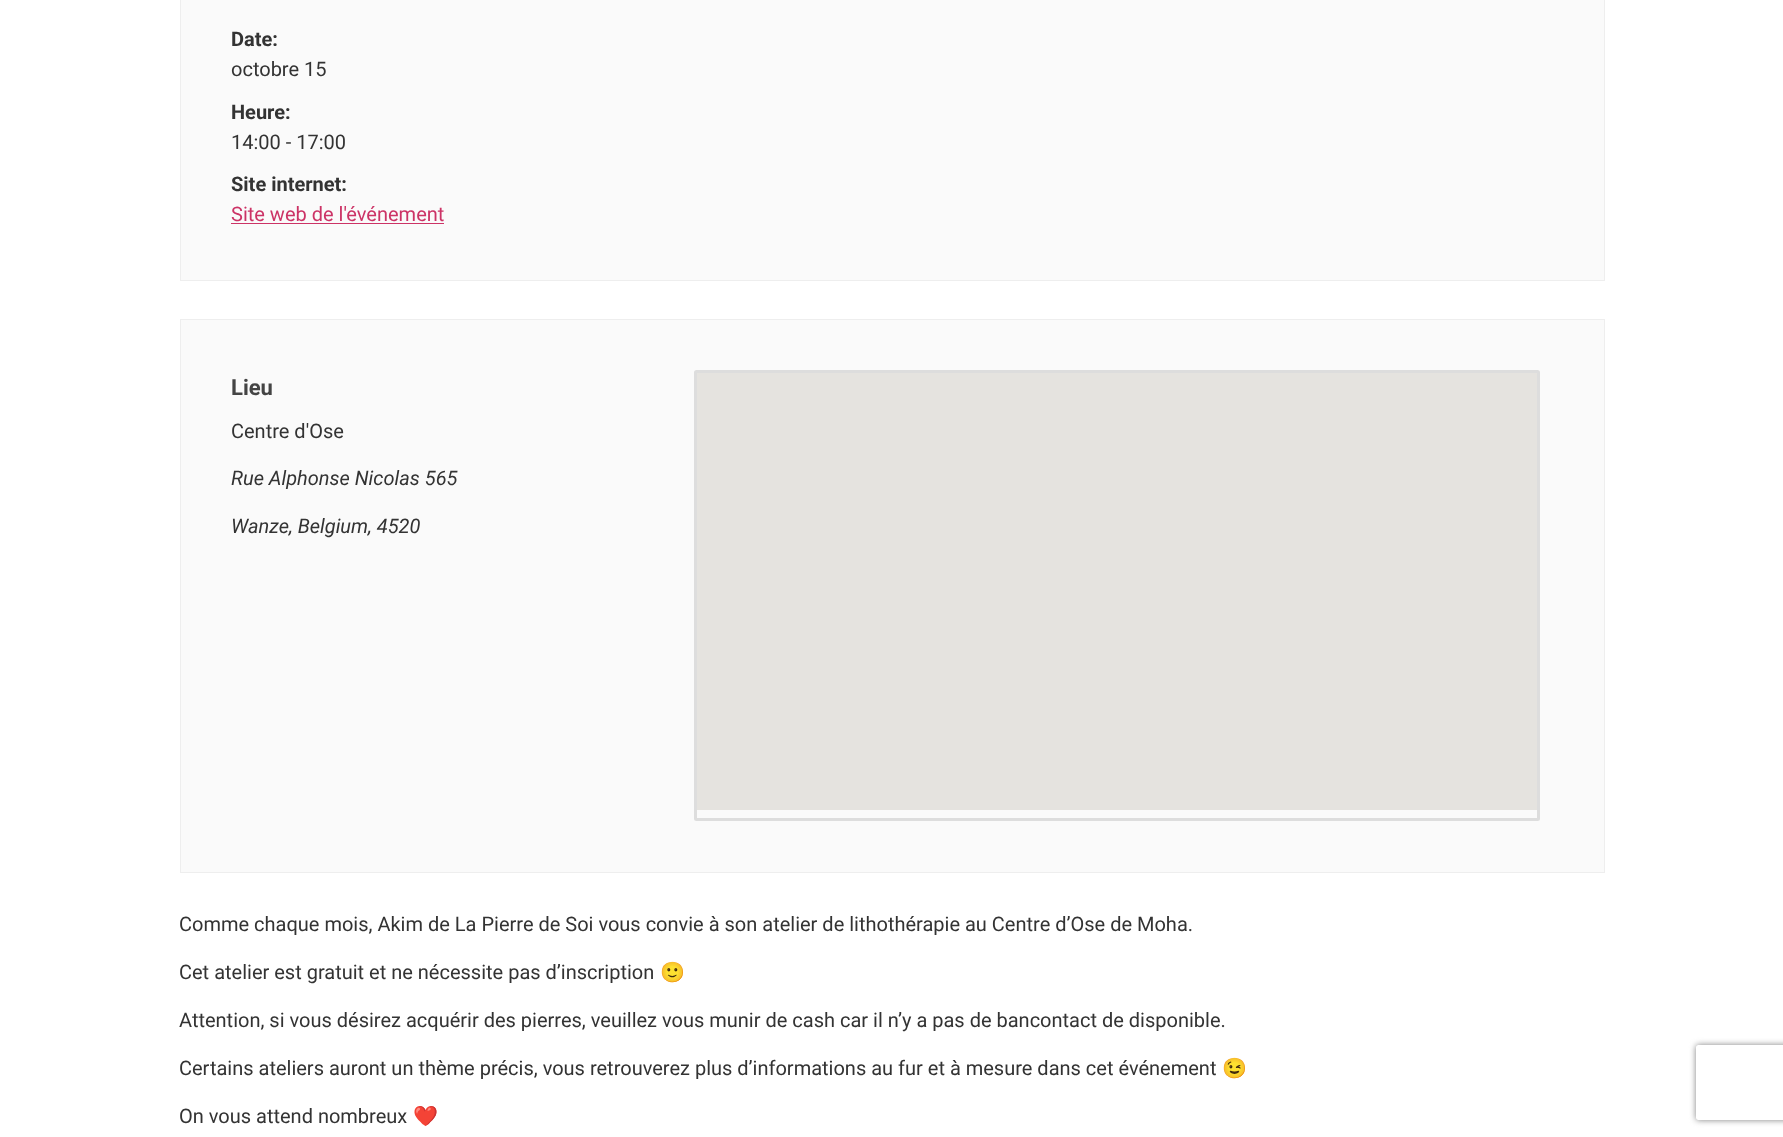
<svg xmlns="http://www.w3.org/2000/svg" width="1783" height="1137">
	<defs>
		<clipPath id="clip1"><path d="M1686 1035H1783V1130H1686ZM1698.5 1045H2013.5C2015 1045 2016 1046 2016 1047.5V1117.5C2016 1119 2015 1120 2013.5 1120H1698.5C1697 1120 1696 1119 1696 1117.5V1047.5C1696 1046 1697 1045 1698.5 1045Z" clip-rule="evenodd" /></clipPath>
	</defs>
	<rect width="100%" height="100%" fill="#FFFFFF" />
	<rect x="180.5" y="-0.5" width="1424" height="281" fill="#FAFAFA" stroke="#EEEEEE" />
	<text x="231" y="46" font-family="Roboto" font-size="20" font-weight="700" fill="#333333">Date:</text>
	<text x="231" y="76" font-family="Roboto" font-size="20" fill="#333333">octobre 15</text>
	<text x="231" y="119" font-family="Roboto" font-size="20" font-weight="700" fill="#333333">Heure:</text>
	<text x="231" y="149" font-family="Roboto" font-size="20" fill="#333333">14:00 - 17:00</text>
	<text x="231" y="191" font-family="Roboto" font-size="20" font-weight="700" fill="#333333">Site internet:</text>
	<text x="231" y="221" font-family="Roboto" font-size="20" fill="#CC3366">Site web de l'événement</text>
	<rect x="231" y="223" width="213" height="1" fill="#CC3366" />
	<rect x="180.5" y="319.5" width="1424" height="553" fill="#FAFAFA" stroke="#EEEEEE" />
	<text x="231" y="395" font-family="Roboto" font-size="22" font-weight="700" fill="#444444">Lieu</text>
	<text x="231" y="438" font-family="Roboto" font-size="20" fill="#333333">Centre d'Ose</text>
	<g font-family="Roboto" font-size="20" font-style="italic" fill="#333333">
		<text x="231" y="485">Rue Alphonse Nicolas 565</text>
		<text x="231" y="533">Wanze, Belgium, 4520</text>
	</g>
	<rect x="695.5" y="371.5" width="843" height="448" rx="1" fill="none" stroke="#DDDDDD" stroke-width="3" />
	<rect x="697" y="373" width="840" height="437" fill="#E5E3DF" />
	<g font-family="Roboto" font-size="20" fill="#333333">
		<text x="179" y="931">Comme chaque mois, Akim de La Pierre de Soi vous convie à son atelier de lithothérapie au Centre d’Ose de Moha.</text>
		<text x="179" y="979">Cet atelier est gratuit et ne nécessite pas d’inscription</text>
	</g>
	<text x="660" y="979" font-family="Noto Color Emoji" font-size="20" fill="#333333">🙂</text>
	<g font-family="Roboto" font-size="20" fill="#333333">
		<text x="179" y="1027">Attention, si vous désirez acquérir des pierres, veuillez vous munir de cash car il n’y a pas de bancontact de disponible.</text>
		<text x="179" y="1075">Certains ateliers auront un thème précis, vous retrouverez plus d’informations au fur et à mesure dans cet événement</text>
	</g>
	<text x="1222" y="1075" font-family="Noto Color Emoji" font-size="20" fill="#333333">😉</text>
	<text x="179" y="1123" font-family="Roboto" font-size="20" fill="#333333">On vous attend nombreux</text>
	<text x="413" y="1123" font-family="Noto Color Emoji" font-size="20" fill="#333333">❤</text>
	<g clip-path="url(#clip1)">
		<rect x="1696" y="1045" width="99" height="75" rx="2.5" fill="#808080" filter="blur(3px)" />
	</g>
</svg>
